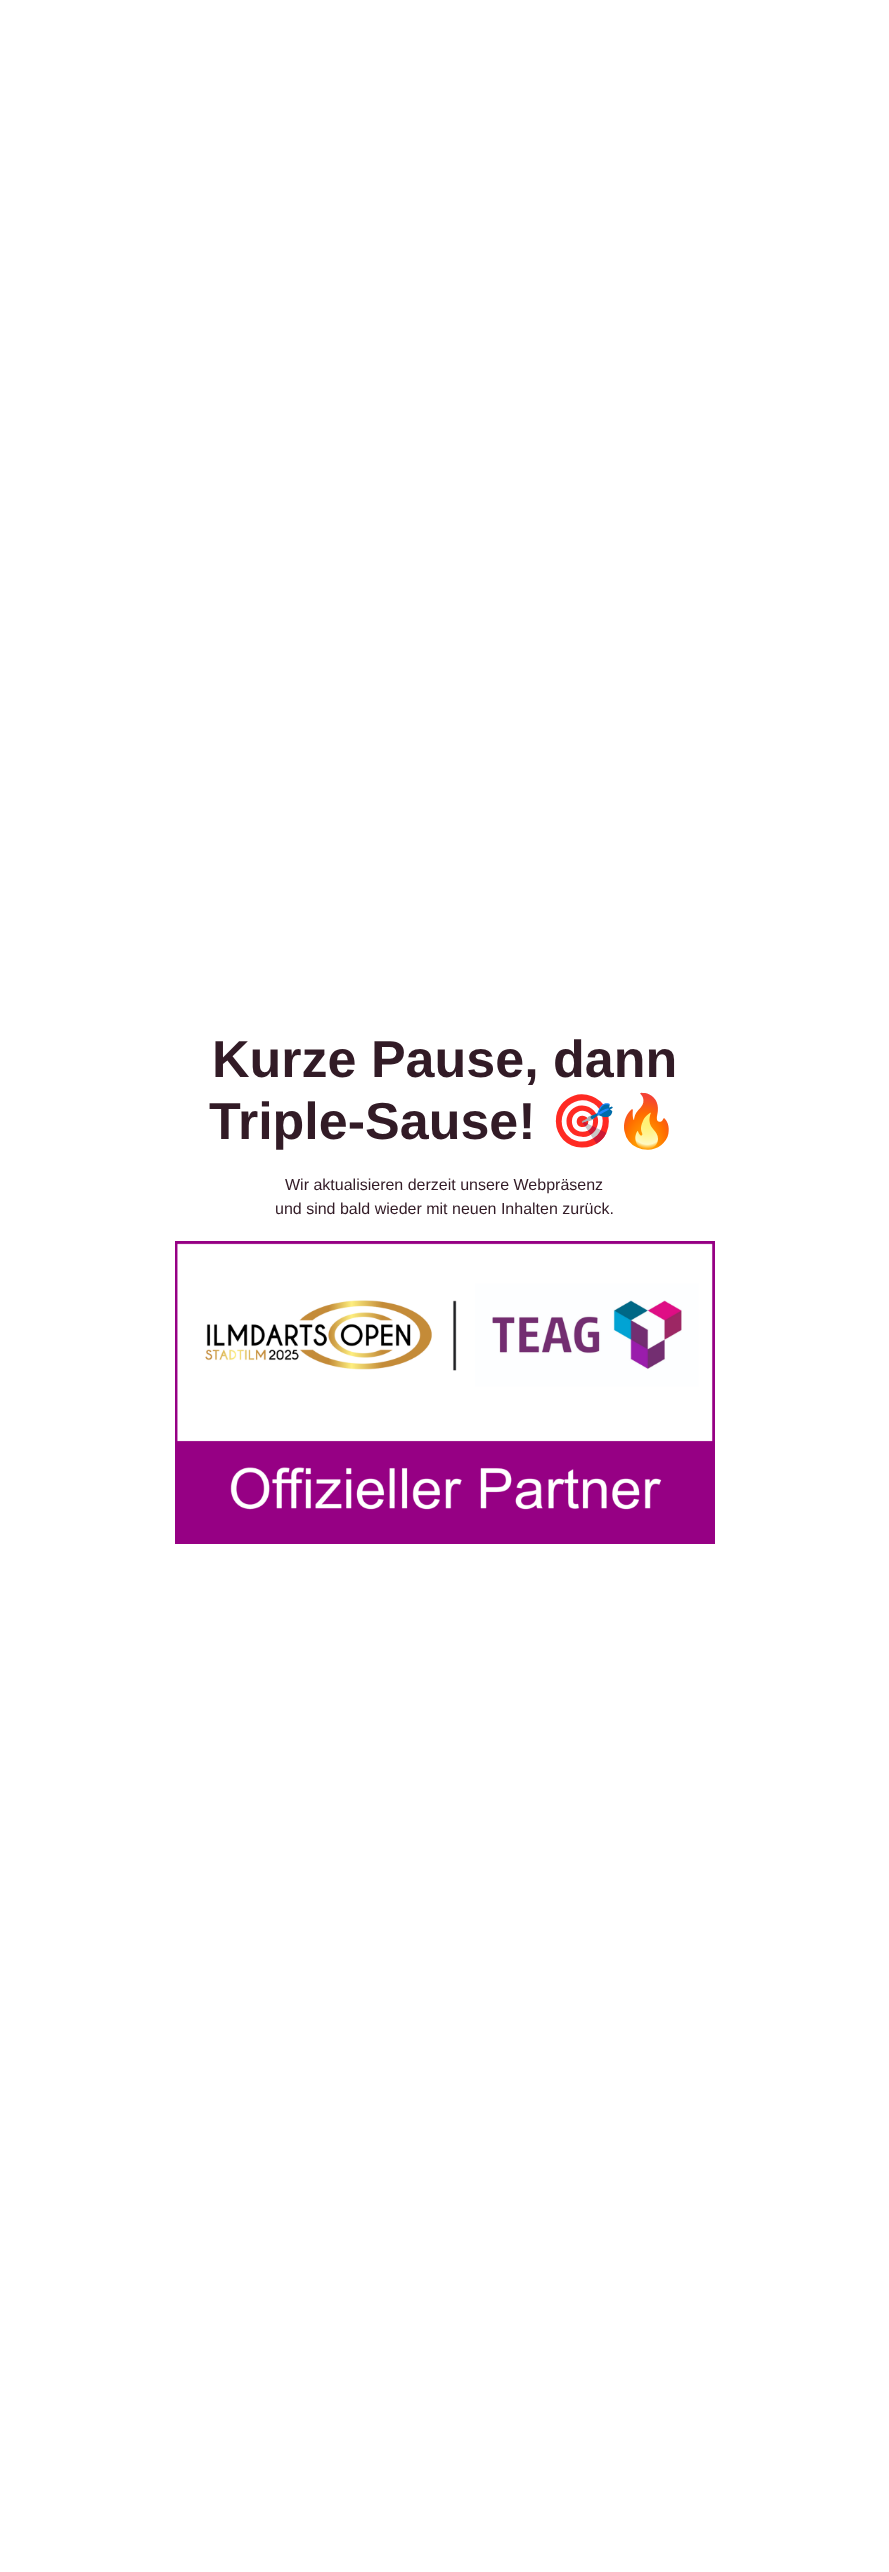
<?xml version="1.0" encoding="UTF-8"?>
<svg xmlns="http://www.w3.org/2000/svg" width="889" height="2572">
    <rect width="100%" height="100%" fill="#FFFFFF"/>
    <text x="212" y="1077" font-family="Liberation Sans" font-size="52" font-weight="700" fill="#321B26">Kurze Pause, dann</text>
    <text x="209" y="1139" font-family="Liberation Sans" font-size="52" font-weight="700" fill="#321B26">Triple-Sause!</text>
    <text x="550" y="1139" font-family="Noto Color Emoji" font-size="52" font-weight="700" fill="#321B26">🎯🔥</text>
    <text x="285" y="1190" font-family="Liberation Sans" font-size="16" fill="#321B26">Wir aktualisieren derzeit unsere Webpräsenz</text>
    <text x="275" y="1214" font-family="Liberation Sans" font-size="16" fill="#321B26">und sind bald wieder mit neuen Inhalten zurück.</text>
    <image x="175" y="1241" width="540" height="303" href="img_01.png"/>
</svg>
